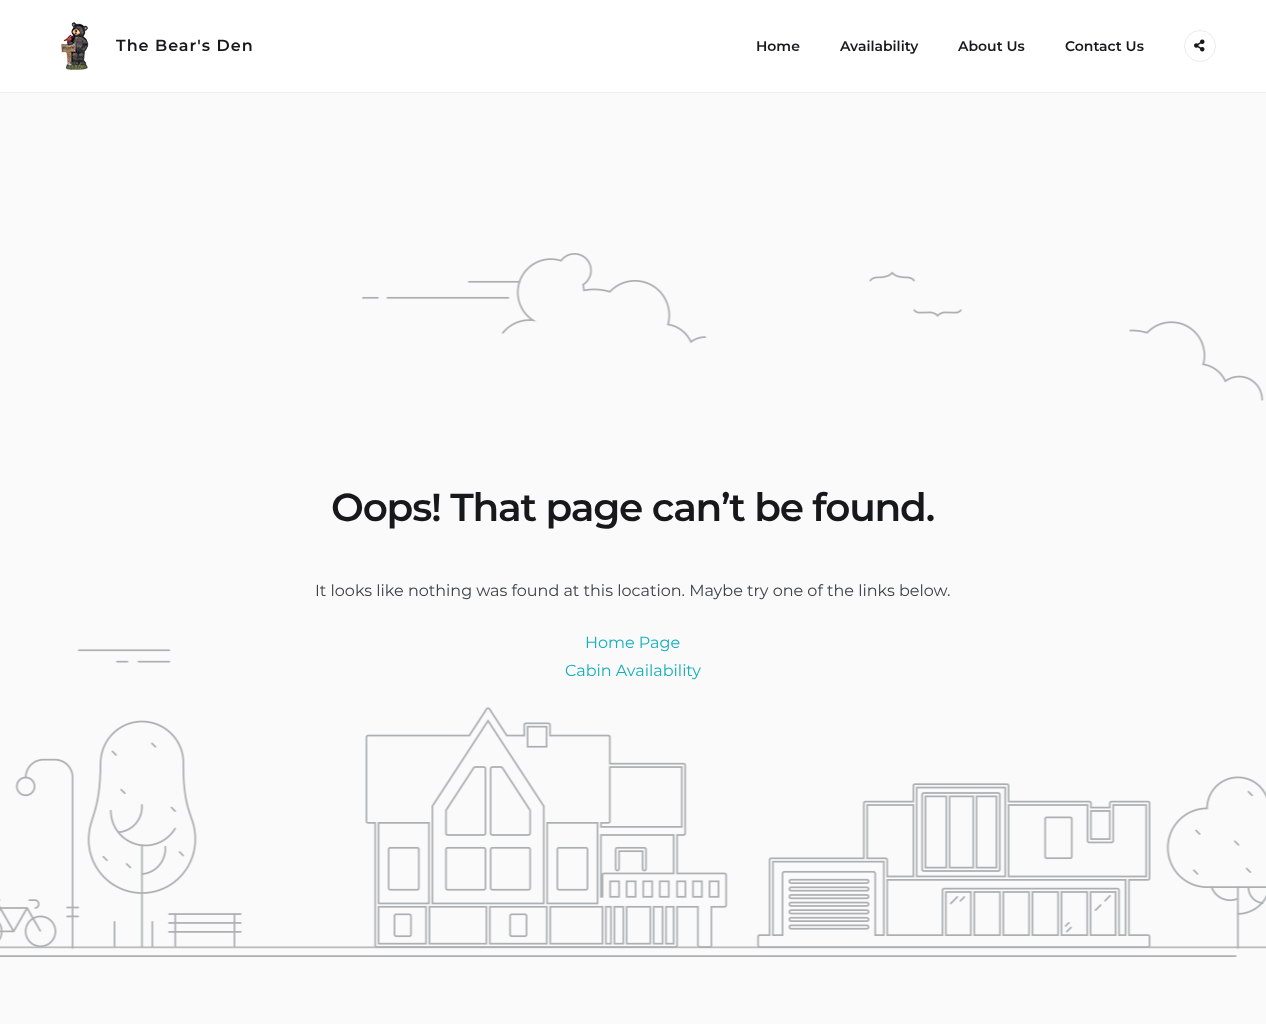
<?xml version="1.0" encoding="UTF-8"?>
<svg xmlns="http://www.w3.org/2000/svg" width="1266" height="1024">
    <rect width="100%" height="100%" fill="#FAFAFA"/>
    <rect x="0" y="92" width="1266" height="1" fill="#EDEDED"/>
    <rect x="0" y="0" width="1266" height="92" fill="#FFFFFF"/>
    <image x="61" y="22" width="28" height="48" href="img_01.png"/>
    <text x="116" y="51" font-family="Montserrat" font-size="16" font-weight="600" letter-spacing="1" fill="#17181A">The Bear's Den</text>
    <text x="756" y="51" font-family="Montserrat" font-size="14" font-weight="600" fill="#17181A">Home</text>
    <text x="840" y="51" font-family="Montserrat" font-size="14" font-weight="600" fill="#17181A">Availability</text>
    <text x="958" y="51" font-family="Montserrat" font-size="14" font-weight="600" fill="#17181A">About Us</text>
    <text x="1065" y="51" font-family="Montserrat" font-size="14" font-weight="600" fill="#17181A">Contact Us</text>
    <circle cx="1200" cy="46" r="15.5" fill="none" stroke="#EDEDED"/>
    <image x="1194" y="39" width="11" height="13" href="img_02.png"/>
    <image x="0" y="253" width="1266" height="704" href="img_03.png"/>
    <text x="331" y="521" font-family="Montserrat" font-size="39" font-weight="600" letter-spacing="-1.2" fill="#17181A">Oops! That page can’t be found.</text>
    <text x="315" y="596" font-family="Montserrat" font-size="16" fill="#3B4249">It looks like nothing was found at this location. Maybe try one of the links below.</text>
    <text x="585" y="648" font-family="Montserrat" font-size="16" fill="#13B0BB">Home Page</text>
    <text x="565" y="676" font-family="Montserrat" font-size="16" fill="#13B0BB">Cabin Availability</text>
</svg>
